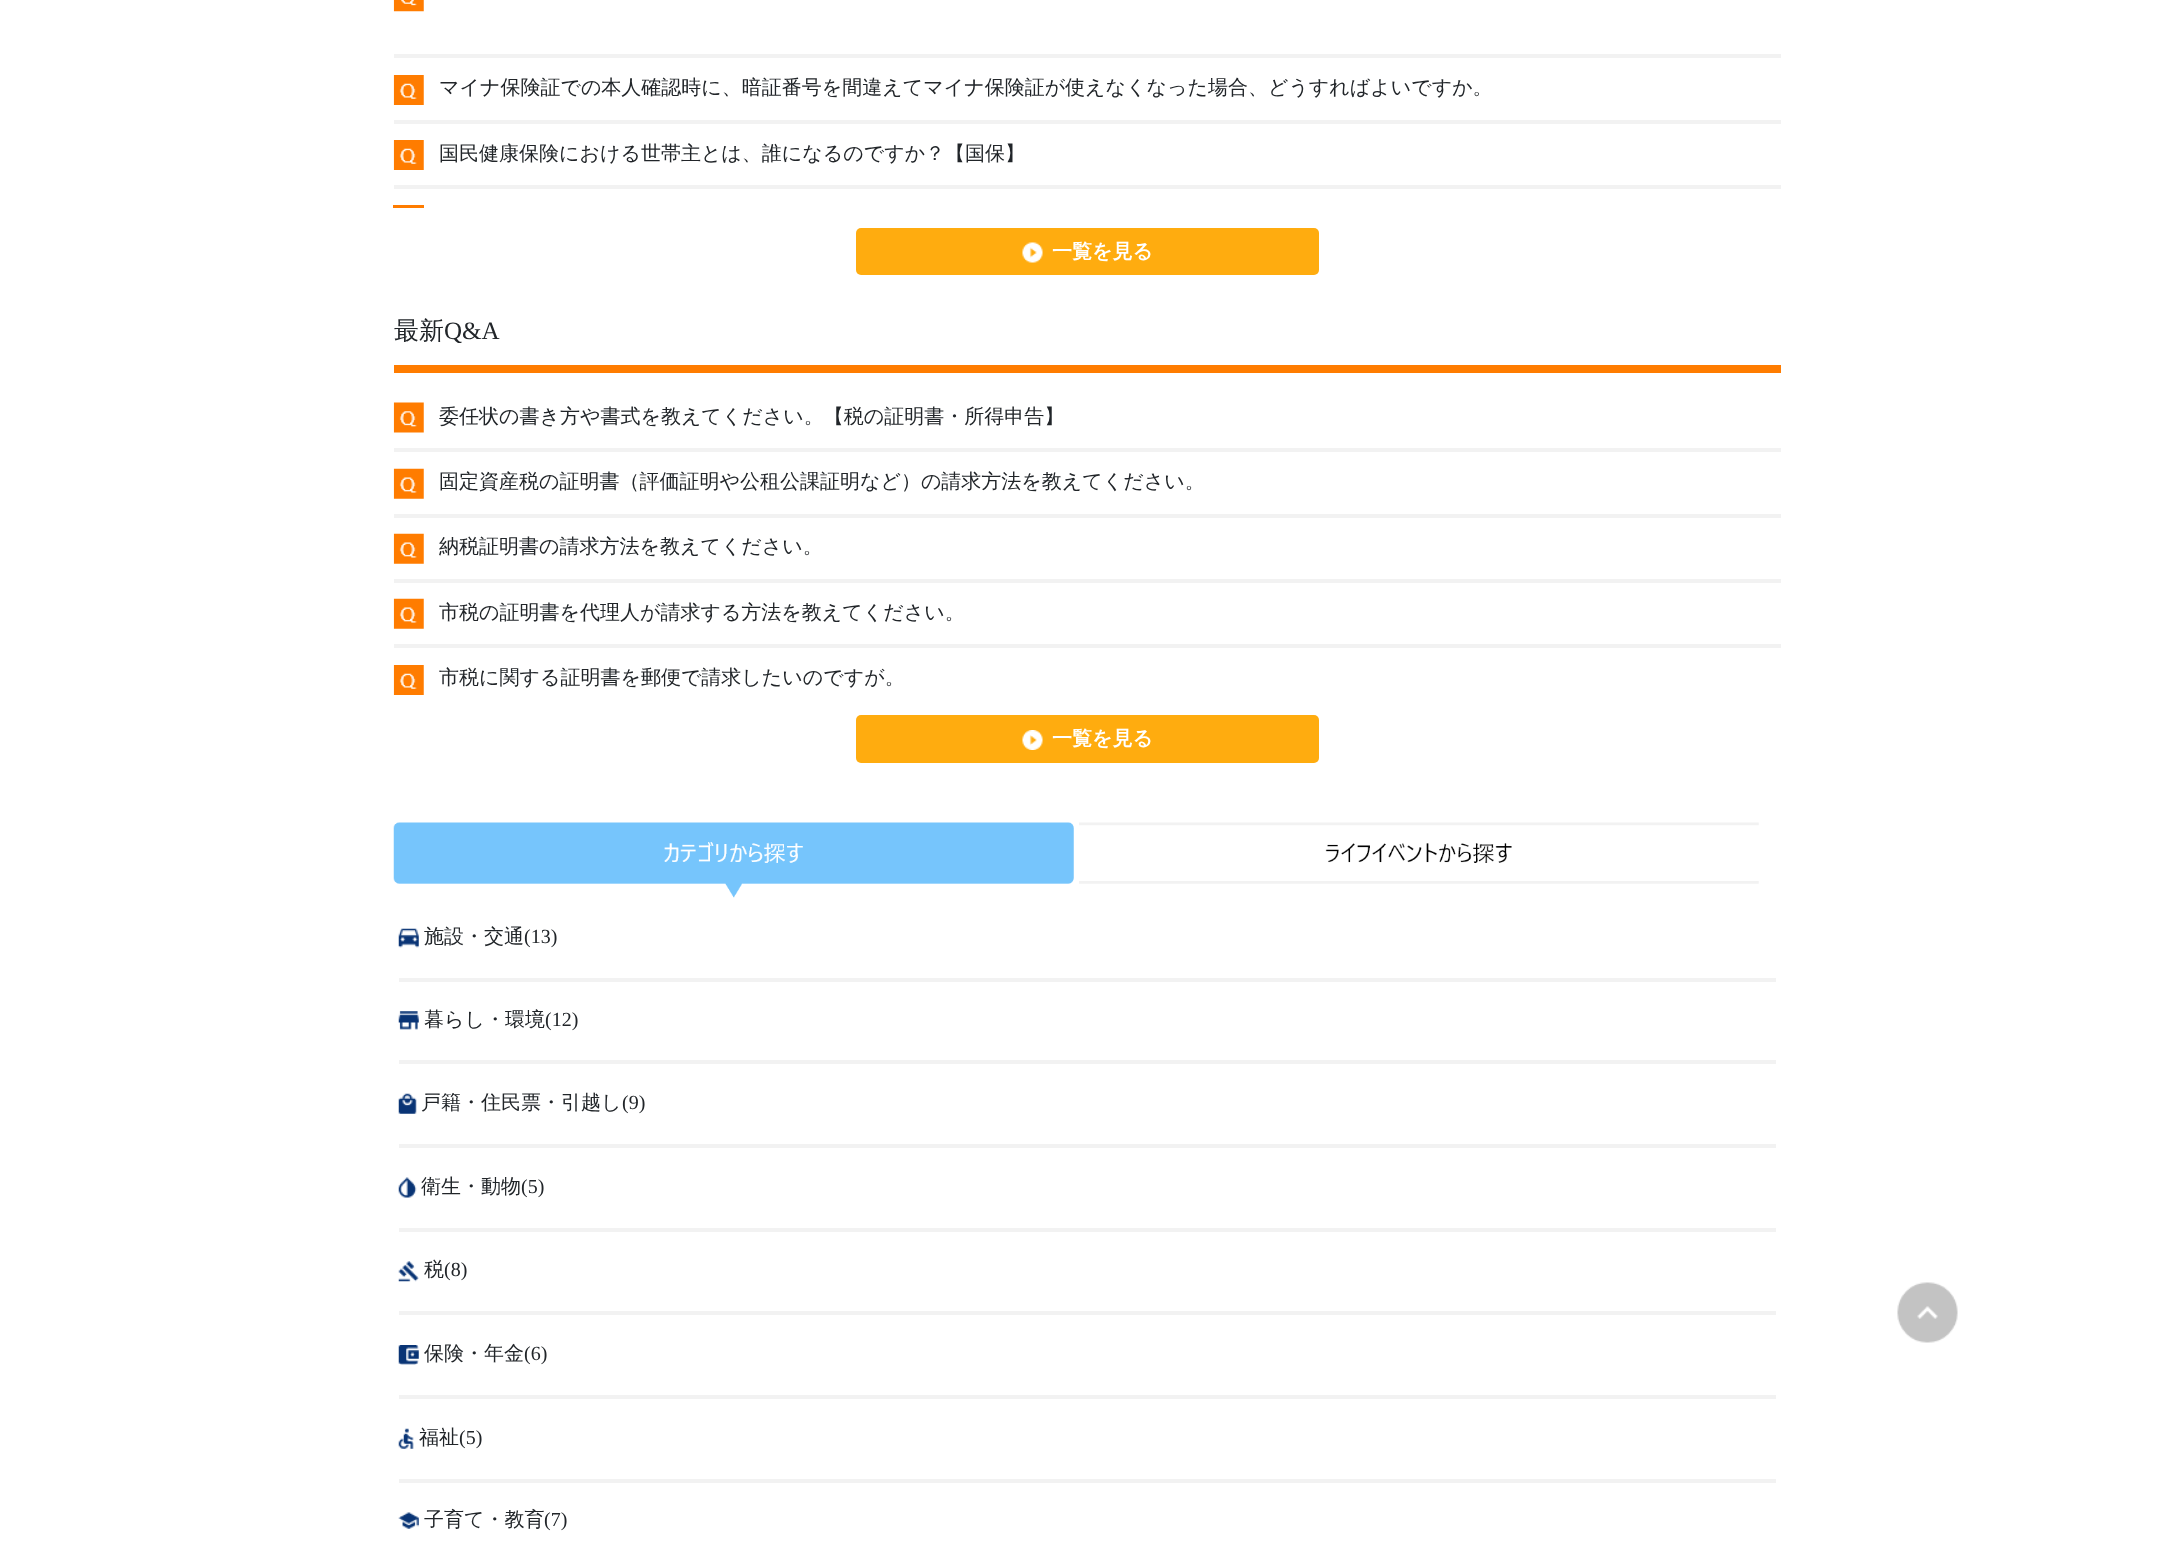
<?xml version="1.0" encoding="UTF-8"?>
<svg xmlns="http://www.w3.org/2000/svg" width="2175" height="1559">
    <rect width="100%" height="100%" fill="#FFFFFF"/>
    <rect x="394" y="54" width="1387" height="4" fill="#F2F2F2"/>
    <image x="393" y="0" width="31" height="12" href="img_01.png"/>
    <rect x="394" y="120" width="1387" height="4" fill="#F2F2F2"/>
    <image x="393" y="75" width="31" height="30" href="img_02.png"/>
    <text x="439" y="94" font-family="WenQuanYi Zen Hei" font-size="20" font-weight="500" fill="#212529">マイナ保険証での本人確認時に、暗証番号を間違えてマイナ保険証が使えなくなった場合、どうすればよいですか。</text>
    <rect x="394" y="185" width="1387" height="4" fill="#F2F2F2"/>
    <image x="393" y="140" width="31" height="30" href="img_02.png"/>
    <text x="439" y="160" font-family="WenQuanYi Zen Hei" font-size="20" font-weight="500" fill="#212529">国民健康保険における世帯主とは、誰になるのですか？【国保】</text>
    <rect x="393" y="205" width="31" height="3" fill="#FF7C00"/>
    <rect x="856" y="228" width="463" height="47" rx="5" fill="#FFAC0F"/>
    <image x="1022" y="242" width="21" height="21" href="img_03.png"/>
    <text x="1052" y="258" font-family="WenQuanYi Zen Hei" font-size="20" font-weight="700" fill="#FFFFFF">一覧を見る</text>
    <text x="394" y="339" font-family="WenQuanYi Zen Hei" font-size="25" font-weight="500" fill="#212529">最新</text>
    <text x="444" y="339" font-family="Liberation Serif" font-size="25" fill="#212529">Q&amp;A</text>
    <rect x="394" y="365" width="1387" height="8" fill="#FF7C00"/>
    <rect x="394" y="448" width="1387" height="4" fill="#F2F2F2"/>
    <image x="393" y="402" width="31" height="31" href="img_04.png"/>
    <text x="439" y="423" font-family="WenQuanYi Zen Hei" font-size="20" font-weight="500" fill="#212529">委任状の書き方や書式を教えてください。【税の証明書・所得申告】</text>
    <rect x="394" y="514" width="1387" height="4" fill="#F2F2F2"/>
    <image x="393" y="468" width="31" height="31" href="img_05.png"/>
    <text x="439" y="488" font-family="WenQuanYi Zen Hei" font-size="20" font-weight="500" fill="#212529">固定資産税の証明書（評価証明や公租公課証明など）の請求方法を教えてください。</text>
    <rect x="394" y="579" width="1387" height="4" fill="#F2F2F2"/>
    <image x="393" y="533" width="31" height="31" href="img_05.png"/>
    <text x="439" y="553" font-family="WenQuanYi Zen Hei" font-size="20" font-weight="500" fill="#212529">納税証明書の請求方法を教えてください。</text>
    <rect x="394" y="644" width="1387" height="4" fill="#F2F2F2"/>
    <image x="393" y="598" width="31" height="31" href="img_05.png"/>
    <text x="439" y="619" font-family="WenQuanYi Zen Hei" font-size="20" font-weight="500" fill="#212529">市税の証明書を代理人が請求する方法を教えてください。</text>
    <image x="393" y="665" width="31" height="30" href="img_02.png"/>
    <text x="439" y="684" font-family="WenQuanYi Zen Hei" font-size="20" font-weight="500" fill="#212529">市税に関する証明書を郵便で請求したいのですが。</text>
    <rect x="856" y="715" width="463" height="48" rx="5" fill="#FFAC0F"/>
    <image x="1022" y="730" width="21" height="20" href="img_06.png"/>
    <text x="1052" y="745" font-family="WenQuanYi Zen Hei" font-size="20" font-weight="700" fill="#FFFFFF">一覧を見る</text>
    <image x="393" y="822" width="681" height="76" href="img_07.png"/>
    <image x="1079" y="822" width="680" height="62" href="img_08.png"/>
    <rect x="399" y="978" width="1377" height="4" fill="#F2F2F2"/>
    <image x="398" y="928" width="21" height="20" href="img_09.png"/>
    <text x="424" y="943" font-family="WenQuanYi Zen Hei" font-size="20" font-weight="500" fill="#212529">施設・交通</text>
    <text x="524" y="943" font-family="Liberation Serif" font-size="20" fill="#212529">(13)</text>
    <rect x="399" y="1060" width="1377" height="4" fill="#F2F2F2"/>
    <image x="398" y="1011" width="21" height="19" href="img_10.png"/>
    <text x="424" y="1026" font-family="WenQuanYi Zen Hei" font-size="20" font-weight="500" fill="#212529">暮らし・環境</text>
    <text x="545" y="1026" font-family="Liberation Serif" font-size="20" fill="#212529">(12)</text>
    <rect x="399" y="1144" width="1377" height="4" fill="#F2F2F2"/>
    <image x="398" y="1093" width="19" height="21" href="img_11.png"/>
    <text x="421" y="1109" font-family="WenQuanYi Zen Hei" font-size="20" font-weight="500" fill="#212529">戸籍・住民票・引越し</text>
    <text x="622" y="1109" font-family="Liberation Serif" font-size="20" fill="#212529">(9)</text>
    <rect x="399" y="1228" width="1377" height="4" fill="#F2F2F2"/>
    <image x="398" y="1177" width="19" height="21" href="img_12.png"/>
    <text x="421" y="1193" font-family="WenQuanYi Zen Hei" font-size="20" font-weight="500" fill="#212529">衛生・動物</text>
    <text x="521" y="1193" font-family="Liberation Serif" font-size="20" fill="#212529">(5)</text>
    <rect x="399" y="1311" width="1377" height="4" fill="#F2F2F2"/>
    <image x="398" y="1261" width="21" height="21" href="img_13.png"/>
    <text x="424" y="1276" font-family="WenQuanYi Zen Hei" font-size="20" font-weight="500" fill="#212529">税</text>
    <text x="444" y="1276" font-family="Liberation Serif" font-size="20" fill="#212529">(8)</text>
    <rect x="399" y="1395" width="1377" height="4" fill="#F2F2F2"/>
    <image x="398" y="1345" width="21" height="20" href="img_14.png"/>
    <text x="424" y="1360" font-family="WenQuanYi Zen Hei" font-size="20" font-weight="500" fill="#212529">保険・年金</text>
    <text x="524" y="1360" font-family="Liberation Serif" font-size="20" fill="#212529">(6)</text>
    <rect x="399" y="1479" width="1377" height="4" fill="#F2F2F2"/>
    <image x="398" y="1428" width="16" height="21" href="img_15.png"/>
    <text x="419" y="1444" font-family="WenQuanYi Zen Hei" font-size="20" font-weight="500" fill="#212529">福祉</text>
    <text x="459" y="1444" font-family="Liberation Serif" font-size="20" fill="#212529">(5)</text>
    <image x="398" y="1512" width="21" height="17" href="img_16.png"/>
    <text x="424" y="1526" font-family="WenQuanYi Zen Hei" font-size="20" font-weight="500" fill="#212529">子育て・教育</text>
    <text x="544" y="1526" font-family="Liberation Serif" font-size="20" fill="#212529">(7)</text>
    <image x="1897" y="1282" width="61" height="61" href="img_17.png"/>
</svg>
